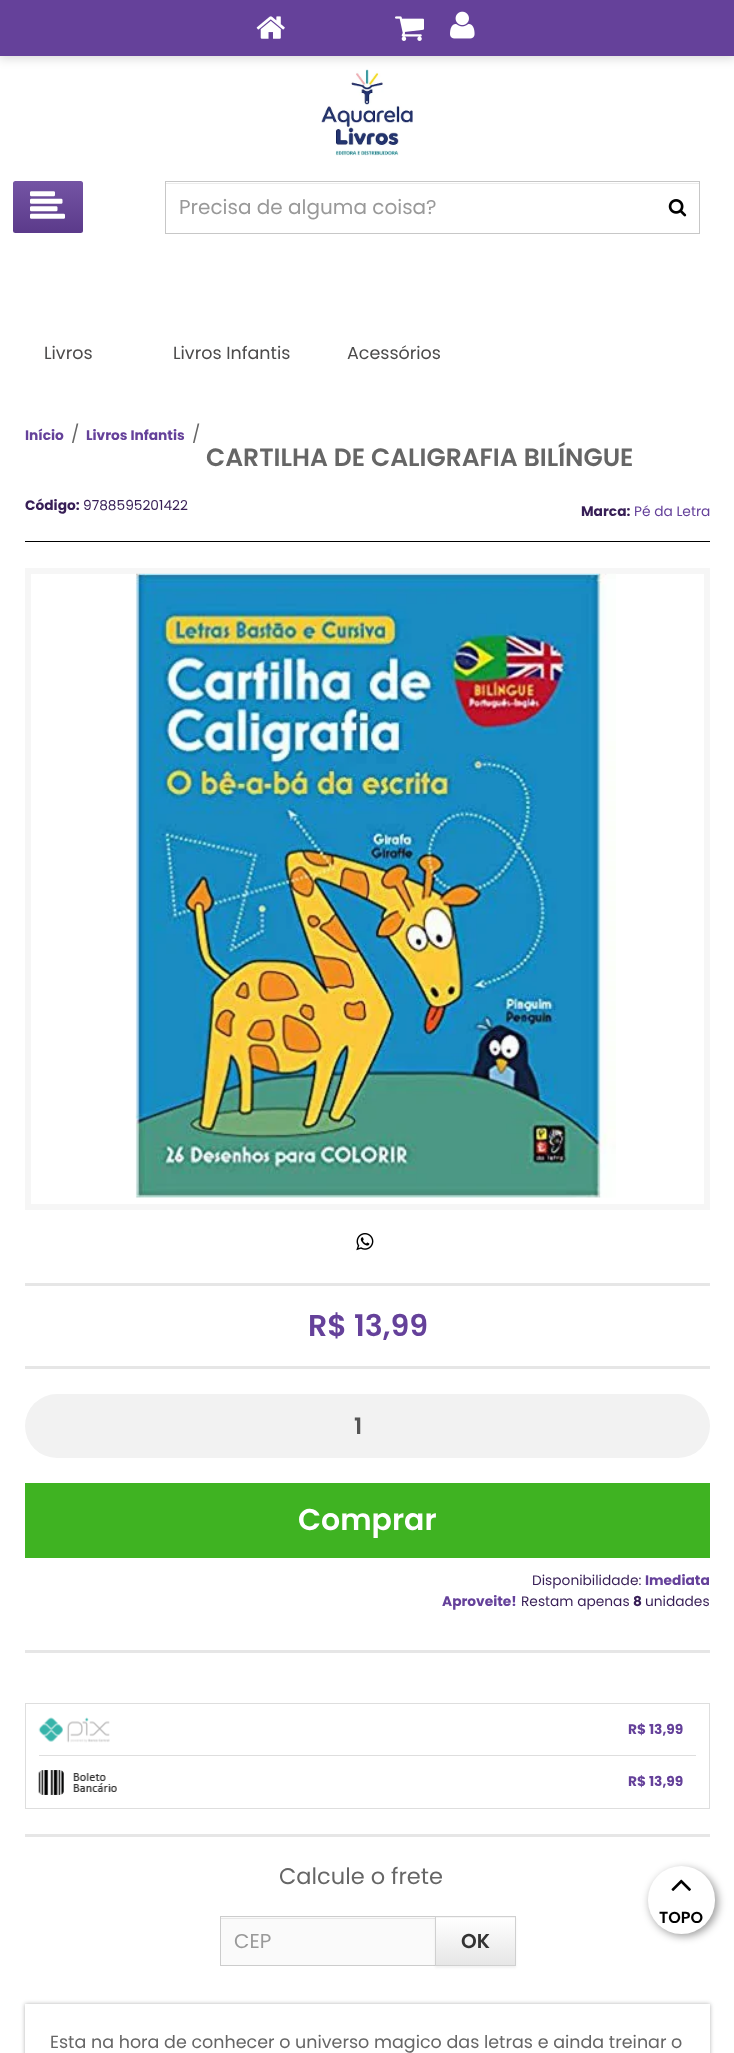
<?xml version="1.0" encoding="UTF-8"?>
<svg xmlns="http://www.w3.org/2000/svg" width="734" height="2053">
    <defs>
        <filter id="blur1" x="-50%" y="-200%" width="200%" height="500%"><feGaussianBlur stdDeviation="5.5"/></filter>
        <linearGradient id="g1" gradientUnits="userSpaceOnUse" x1="48" y1="181" x2="48" y2="233"><stop offset="0" stop-color="#FFFFFF" stop-opacity="0.1"/><stop offset="1" stop-color="#000000" stop-opacity="0.1"/></linearGradient>
        <filter id="blur2" x="-50%" y="-200%" width="200%" height="500%"><feGaussianBlur stdDeviation="1"/></filter>
        <linearGradient id="g2" gradientUnits="userSpaceOnUse" x1="476" y1="1918" x2="476" y2="1965"><stop offset="0" stop-color="#FFFFFF"/><stop offset="1" stop-color="#E6E6E6"/></linearGradient>
        <clipPath id="clip1"><path d="M 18 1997 H 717 V 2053 H 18 Z M 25 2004 H 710 V 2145 H 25 Z" clip-rule="evenodd"/></clipPath>
        <filter id="blur3" x="-50%" y="-200%" width="200%" height="500%"><feGaussianBlur stdDeviation="2"/></filter>
        <filter id="blur4" x="-50%" y="-200%" width="200%" height="500%"><feGaussianBlur stdDeviation="4"/></filter>
    </defs>
    <rect width="100%" height="100%" fill="#FFFFFF"/>
    <image x="321" y="69" width="92" height="87" href="img_04.png"/>
    <rect x="-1" y="-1" width="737" height="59" fill="#000000" fill-opacity="0.16" filter="url(#blur1)"/>
    <rect x="0" y="0" width="734" height="56" fill="#65419A"/>
    <image x="256" y="16" width="29" height="23" href="img_01.png"/>
    <image x="395" y="16" width="29" height="25" href="img_02.png"/>
    <image x="450" y="11" width="25" height="28" href="img_03.png"/>
    <rect x="13" y="181" width="70" height="52" rx="2.5" fill="#65419A"/>
    <rect x="13" y="181" width="70" height="52" rx="2.5" fill="url(#g1)"/>
    <image x="30" y="191" width="35" height="28" href="img_05.png"/>
    <rect x="166" y="183" width="533" height="1" fill="#ECECEC"/>
    <rect x="165.5" y="181.5" width="534" height="52" fill="none" stroke="#C7C7C7"/>
    <text x="179" y="214" font-family="Poppins" font-size="20" fill="#999999">Precisa de alguma coisa?</text>
    <image x="668" y="199" width="19" height="18" href="img_06.png"/>
    <text x="44" y="359" font-family="Poppins" font-size="17.5" fill="#4C4B4B">Livros</text>
    <text x="173" y="359" font-family="Poppins" font-size="17.5" fill="#4C4B4B">Livros Infantis</text>
    <text x="347" y="359" font-family="Poppins" font-size="17.5" fill="#4C4B4B">Acessórios</text>
    <text x="25" y="440" font-family="Poppins" font-size="13.75" font-weight="700" fill="#65419A">Início</text>
    <text x="71" y="440" font-family="Poppins" font-size="17.5" fill="#666666">/</text>
    <text x="86" y="440" font-family="Poppins" font-size="13.75" font-weight="700" fill="#65419A">Livros Infantis</text>
    <text x="192" y="440" font-family="Poppins" font-size="17.5" fill="#666666">/</text>
    <text x="206" y="466" font-family="Poppins" font-size="25" font-weight="600" fill="#666666">CARTILHA DE CALIGRAFIA BILÍNGUE</text>
    <rect x="25" y="541" width="685" height="1" fill="#000000"/>
    <text x="25" y="510" font-family="Poppins" font-size="13.75" font-weight="700" fill="#371E56">Código:</text>
    <text x="83" y="510" font-family="Poppins" font-size="13.75" fill="#371E56">9788595201422</text>
    <text x="581" y="516" font-family="Poppins" font-size="13.75" font-weight="700" fill="#371E56">Marca:</text>
    <text x="634" y="516" font-family="Poppins" font-size="13.75" fill="#65419A">Pé da Letra</text>
    <rect x="28" y="571" width="679" height="636" fill="none" stroke="#F6F6F6" stroke-width="6"/>
    <image x="135" y="573" width="481" height="625" href="img_07.png"/>
    <rect x="25" y="1283" width="685" height="3" fill="#E6E6E6"/>
    <image x="356" y="1233" width="18" height="18" href="img_08.png"/>
    <rect x="25" y="1650" width="685" height="3" fill="#E6E6E6"/>
    <rect x="25" y="1366" width="685" height="3" fill="#E6E6E6"/>
    <text x="308" y="1336" font-family="Poppins" font-size="30" font-weight="600" fill="#65419A">R$ 13,99</text>
    <rect x="25" y="1394" width="685" height="64" rx="32" fill="#F2F2F2"/>
    <text x="354" y="1434" font-family="Poppins" font-size="22.5" font-weight="600" fill="#555555">1</text>
    <rect x="25" y="1483" width="685" height="75" fill="#3FB322"/>
    <text x="298" y="1530" font-family="Poppins" font-size="30" font-weight="600" fill="#FFFFFF">Comprar</text>
    <text x="532" y="1585" font-family="Poppins" font-size="13.75" fill="#371E56">Disponibilidade:</text>
    <text x="645" y="1585" font-family="Poppins" font-size="13.75" font-weight="700" fill="#65419A">Imediata</text>
    <text x="442" y="1606" font-family="Poppins" font-size="13.75" font-weight="700" fill="#65419A">Aproveite!</text>
    <text x="521" y="1606" font-family="Poppins" font-size="13.75" fill="#371E56">Restam apenas</text>
    <text x="633" y="1606" font-family="Poppins" font-size="13.75" font-weight="700" fill="#371E56">8</text>
    <text x="645" y="1606" font-family="Poppins" font-size="13.75" fill="#371E56">unidades</text>
    <rect x="25" y="1834" width="685" height="3" fill="#E6E6E6"/>
    <rect x="25.5" y="1703.5" width="684" height="105" fill="none" stroke="#DEDEDE"/>
    <image x="38" y="1717" width="72" height="26" href="img_09.png"/>
    <text x="628" y="1734" font-family="Poppins" font-size="13.75" font-weight="700" fill="#65419A">R$ 13,99</text>
    <rect x="39" y="1755" width="657" height="1" fill="#DEDEDE"/>
    <image x="38" y="1770" width="79" height="25" href="img_10.png"/>
    <text x="628" y="1786" font-family="Poppins" font-size="13.75" font-weight="700" fill="#65419A">R$ 13,99</text>
    <text x="279" y="1884" font-family="Poppins" font-size="22.5" fill="#666666">Calcule o frete</text>
    <rect x="221" y="1917" width="214" height="48" fill="#FAFAFA"/>
    <rect x="221" y="1918" width="214" height="1" fill="#E7E7E7"/>
    <rect x="220.5" y="1916.5" width="239" height="49" fill="none" stroke="#CCCCCC"/>
    <text x="234" y="1948" font-family="Poppins" font-size="20" fill="#999999">CEP</text>
    <rect x="435" y="1918" width="81" height="50" fill="#000000" fill-opacity="0.05" filter="url(#blur2)"/>
    <rect x="436" y="1917" width="79" height="1" fill="#F5F5F5"/>
    <rect x="436" y="1918" width="79" height="47" fill="url(#g2)"/>
    <rect x="435.5" y="1916.5" width="80" height="49" fill="none" stroke="#D0D0D0"/>
    <text x="461" y="1948" font-family="Poppins" font-size="20" font-weight="600" fill="#333333">OK</text>
    <g clip-path="url(#clip1)">
        <rect x="25" y="2004" width="685" height="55" fill="#000000" fill-opacity="0.3" filter="url(#blur3)"/>
    </g>
    <text x="50" y="2048" font-family="Poppins" font-size="17.5" fill="#666666">Esta na hora de conhecer o universo magico das letras e ainda treinar o</text>
    <rect x="650" y="1869" width="68" height="67" rx="33.5" fill="#000000" fill-opacity="0.4" filter="url(#blur4)"/>
    <rect x="648" y="1866" width="67" height="68" rx="33.5" fill="#FFFFFF"/>
    <image x="671" y="1879" width="20" height="12" href="img_11.png"/>
    <text x="659" y="1923" font-family="Poppins" font-size="16" font-weight="600" fill="#000000">TOPO</text>
</svg>
